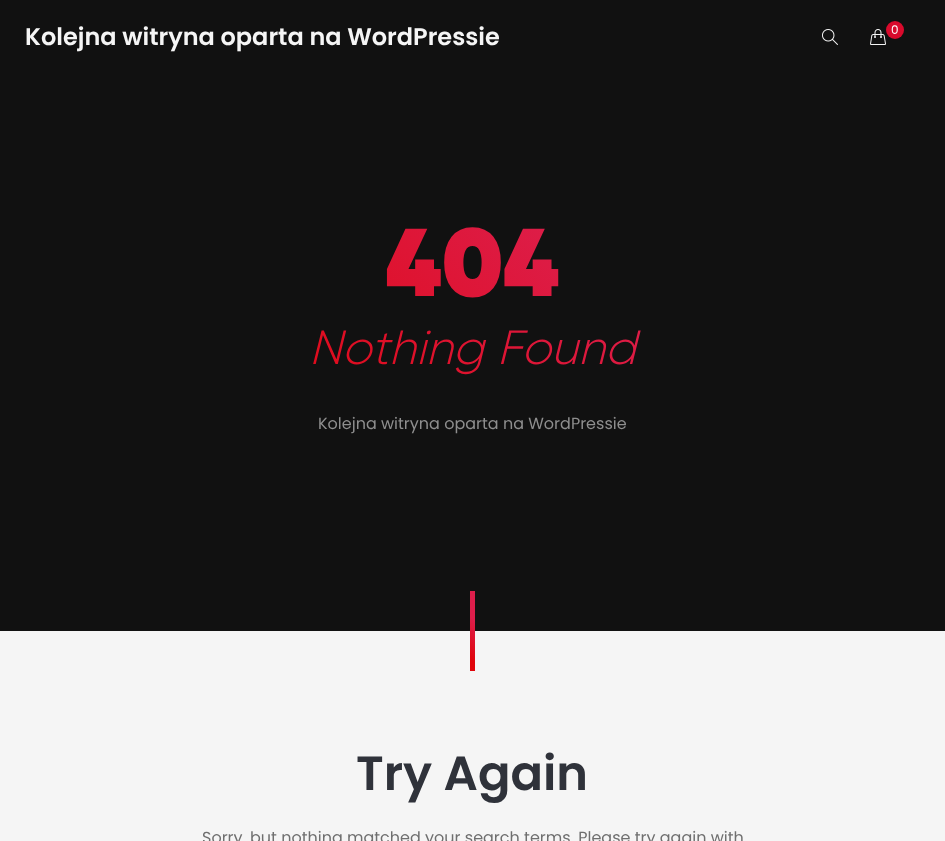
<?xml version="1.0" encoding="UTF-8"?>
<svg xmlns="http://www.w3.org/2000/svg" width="945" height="841">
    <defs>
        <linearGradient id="g1" gradientUnits="userSpaceOnUse" x1="198" y1="566" x2="747" y2="17"><stop offset="0.15" stop-color="#E0040B"/><stop offset="0.65" stop-color="#DD1E4B"/></linearGradient>
        <linearGradient id="g2" gradientUnits="userSpaceOnUse" x1="451" y1="652" x2="494" y2="610"><stop offset="0.15" stop-color="#E0040B"/><stop offset="0.65" stop-color="#DD1E4B"/></linearGradient>
    </defs>
    <rect width="100%" height="100%" fill="#F5F5F5"/>
    <rect x="0" y="0" width="945" height="631" fill="#111111"/>
    <text x="25" y="45" font-family="Poppins" font-size="24" font-weight="600" fill="#F5F5F5">Kolejna witryna oparta na WordPressie</text>
    <image x="822" y="29" width="16" height="16" href="img_01.png"/>
    <image x="870" y="29" width="16" height="16" href="img_02.png"/>
    <circle cx="895" cy="30" r="9" fill="#D90A2C"/>
    <text x="891" y="34" font-family="Poppins" font-size="12" fill="#FFFFFF">0</text>
    <text x="386" y="296" font-family="Gilroy" font-size="96" font-weight="900" fill="url(#g1)">404</text>
    <text x="309" y="364" font-family="Gilroy" font-size="48" font-weight="300" font-style="italic" fill="url(#g1)">Nothing Found</text>
    <text x="318" y="429" font-family="Poppins" font-size="16" fill="#8E8E8E">Kolejna witryna oparta na WordPressie</text>
    <rect x="470" y="591" width="5" height="80" fill="url(#g2)"/>
    <text x="356" y="790" font-family="Poppins" font-size="48" font-weight="600" fill="#2F323A">Try Again</text>
    <text x="202" y="843" font-family="Poppins" font-size="16" fill="#6F6F6F">Sorry, but nothing matched your search terms. Please try again with</text>
</svg>
